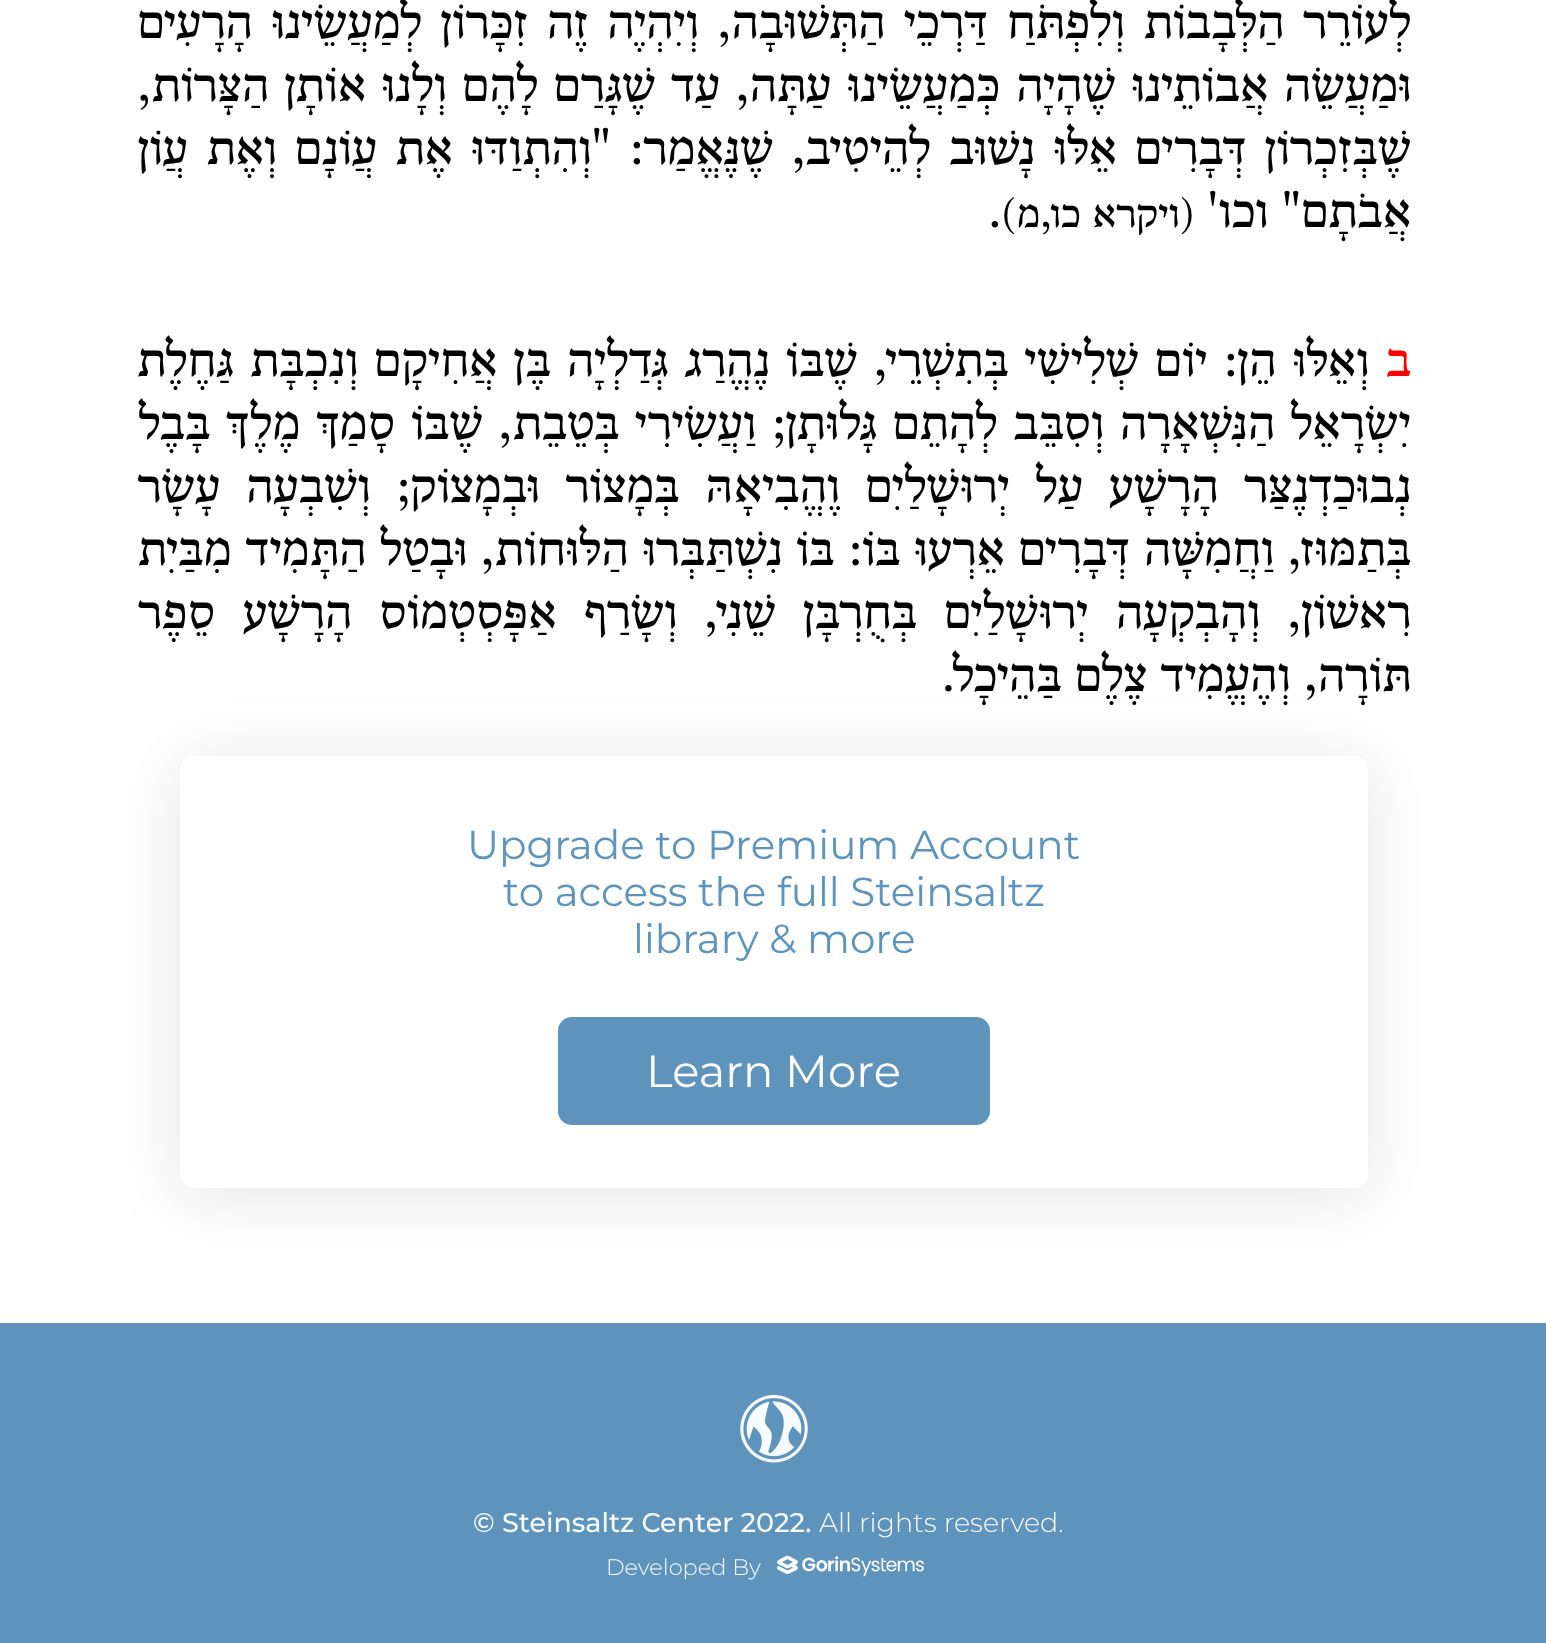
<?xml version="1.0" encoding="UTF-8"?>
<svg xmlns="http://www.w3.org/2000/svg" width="1546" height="1643">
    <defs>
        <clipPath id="clip1"><path d="M 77 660 H 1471 V 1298 H 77 Z M 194 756 H 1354 C 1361.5 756 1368 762.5 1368 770 V 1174 C 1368 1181.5 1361.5 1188 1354 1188 H 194 C 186.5 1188 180 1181.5 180 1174 V 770 C 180 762.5 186.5 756 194 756 Z" clip-rule="evenodd"/></clipPath>
        <filter id="blur1" x="-50%" y="-200%" width="200%" height="500%"><feGaussianBlur stdDeviation="34"/></filter>
    </defs>
    <rect width="100%" height="100%" fill="#FFFFFF"/>
    <text font-family="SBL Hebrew" font-size="49.5" direction="rtl" fill="#000000">
        <tspan x="1411" y="38" word-spacing="5.25">לְעוֹרֵר הַלְּבָבוֹת וְלִפְתֹּחַ דַּרְכֵי הַתְּשׁוּבָה, וְיִהְיֶה זֶה זִכָּרוֹן לְמַעֲשֵׂינוּ הָרָעִים</tspan>
        <tspan x="1411" y="101" word-spacing="2">וּמַעֲשֵׂה אֲבוֹתֵינוּ שֶׁהָיָה כְּמַעֲשֵׂינוּ עַתָּה, עַד שֶׁגָּרַם לָהֶם וְלָנוּ אוֹתָן הַצָּרוֹת,</tspan>
        <tspan x="1411" y="164" word-spacing="4.75">שֶׁבְּזִכְרוֹן דְּבָרִים אֵלּוּ נָשׁוּב לְהֵיטִיב, שֶׁנֶּאֱמַר: "וְהִתְוַדּוּ אֶת עֲוֹנָם וְאֶת עֲוֹן</tspan>
        <tspan x="1411" y="227">אֲבֹתָם" וכו'</tspan>
    </text>
    <text x="1194" y="227" font-family="SBL Hebrew" font-size="41.25" direction="rtl" fill="#000000">(ויקרא כו,מ)</text>
    <text x="988" y="227" font-family="SBL Hebrew" font-size="49.5" fill="#000000">.</text>
    <text x="1411" y="376" font-family="SBL Hebrew" font-size="49.5" direction="rtl" fill="#FF0000">ב</text>
    <text x="1369" y="376" word-spacing="2.6" font-family="SBL Hebrew" font-size="49.5" direction="rtl" fill="#000000">וְאֵלּוּ הֵן: יוֹם שְׁלִישִׁי בְּתִשְׁרֵי, שֶׁבּוֹ נֶהֱרַג גְּדַלְיָה בֶּן אֲחִיקָם וְנִכְבָּת גַּחֶלֶת</text>
    <text font-family="SBL Hebrew" font-size="49.5" direction="rtl" fill="#000000">
        <tspan x="1411" y="439" word-spacing="2.25">יִשְׂרָאֵל הַנִּשְׁאָרָה וְסִבֵּב לְהָתֵם גָּלוּתָן; וַעֲשִׂירִי בְּטֵבֵת, שֶׁבּוֹ סָמַךְ מֶלֶךְ בָּבֶל</tspan>
        <tspan x="1411" y="502" word-spacing="12.25">נְבוּכַדְנֶצַּר הָרָשָׁע עַל יְרוּשָׁלַיִם וֶהֱבִיאָהּ בְּמָצוֹר וּבְמָצוֹק; וְשִׁבְעָה עָשָׂר</tspan>
        <tspan x="1411" y="565" word-spacing="0.25">בְּתַמּוּז, וַחֲמִשָּׁה דְּבָרִים אֵרְעוּ בּוֹ: בּוֹ נִשְׁתַּבְּרוּ הַלּוּחוֹת, וּבָטַל הַתָּמִיד מִבַּיִת</tspan>
        <tspan x="1411" y="628" word-spacing="13.75">רִאשׁוֹן, וְהָבְקְעָה יְרוּשָׁלַיִם בְּחֻרְבָּן שֵׁנִי, וְשָׂרַף אַפָּסְטְמוֹס הָרָשָׁע סֵפֶר</tspan>
    </text>
    <g clip-path="url(#clip1)">
        <rect x="180" y="763" width="1188" height="432" rx="14" fill="#000000" fill-opacity="0.1" filter="url(#blur1)"/>
    </g>
    <text x="1411" y="691" font-family="SBL Hebrew" font-size="49.5" direction="rtl" fill="#000000">תּוֹרָה, וְהֶעֱמִיד צֶלֶם בַּהֵיכָל.</text>
    <text x="467" y="859" font-family="Montserrat" font-size="40.5" fill="#5E94BC">Upgrade to Premium Account</text>
    <text x="503" y="906" font-family="Montserrat" font-size="40.5" fill="#5E94BC">to access the full Steinsaltz</text>
    <text x="633" y="953" font-family="Montserrat" font-size="40.5" fill="#5E94BC">library &amp; more</text>
    <rect x="558" y="1017" width="432" height="108" rx="14" fill="#5E94BC"/>
    <text x="646" y="1087" font-family="Montserrat" font-size="45" fill="#FFFFFF">Learn More</text>
    <rect x="0" y="1323" width="1546" height="320" fill="#5E94BC"/>
    <image x="740" y="1395" width="68" height="68" href="img_01.png"/>
    <text x="819" y="1532" font-family="Montserrat" font-size="27" font-weight="300" fill="#F7FBFE">All rights reserved.</text>
    <text x="473" y="1532" font-family="Montserrat" font-size="27" font-weight="500" fill="#F7FBFE">© Steinsaltz Center 2022.</text>
    <image x="777" y="1555" width="147" height="22" href="img_02.png"/>
    <text x="606" y="1575" font-family="Montserrat" font-size="22.5" font-weight="300" fill="#F7FBFE">Developed By</text>
</svg>
